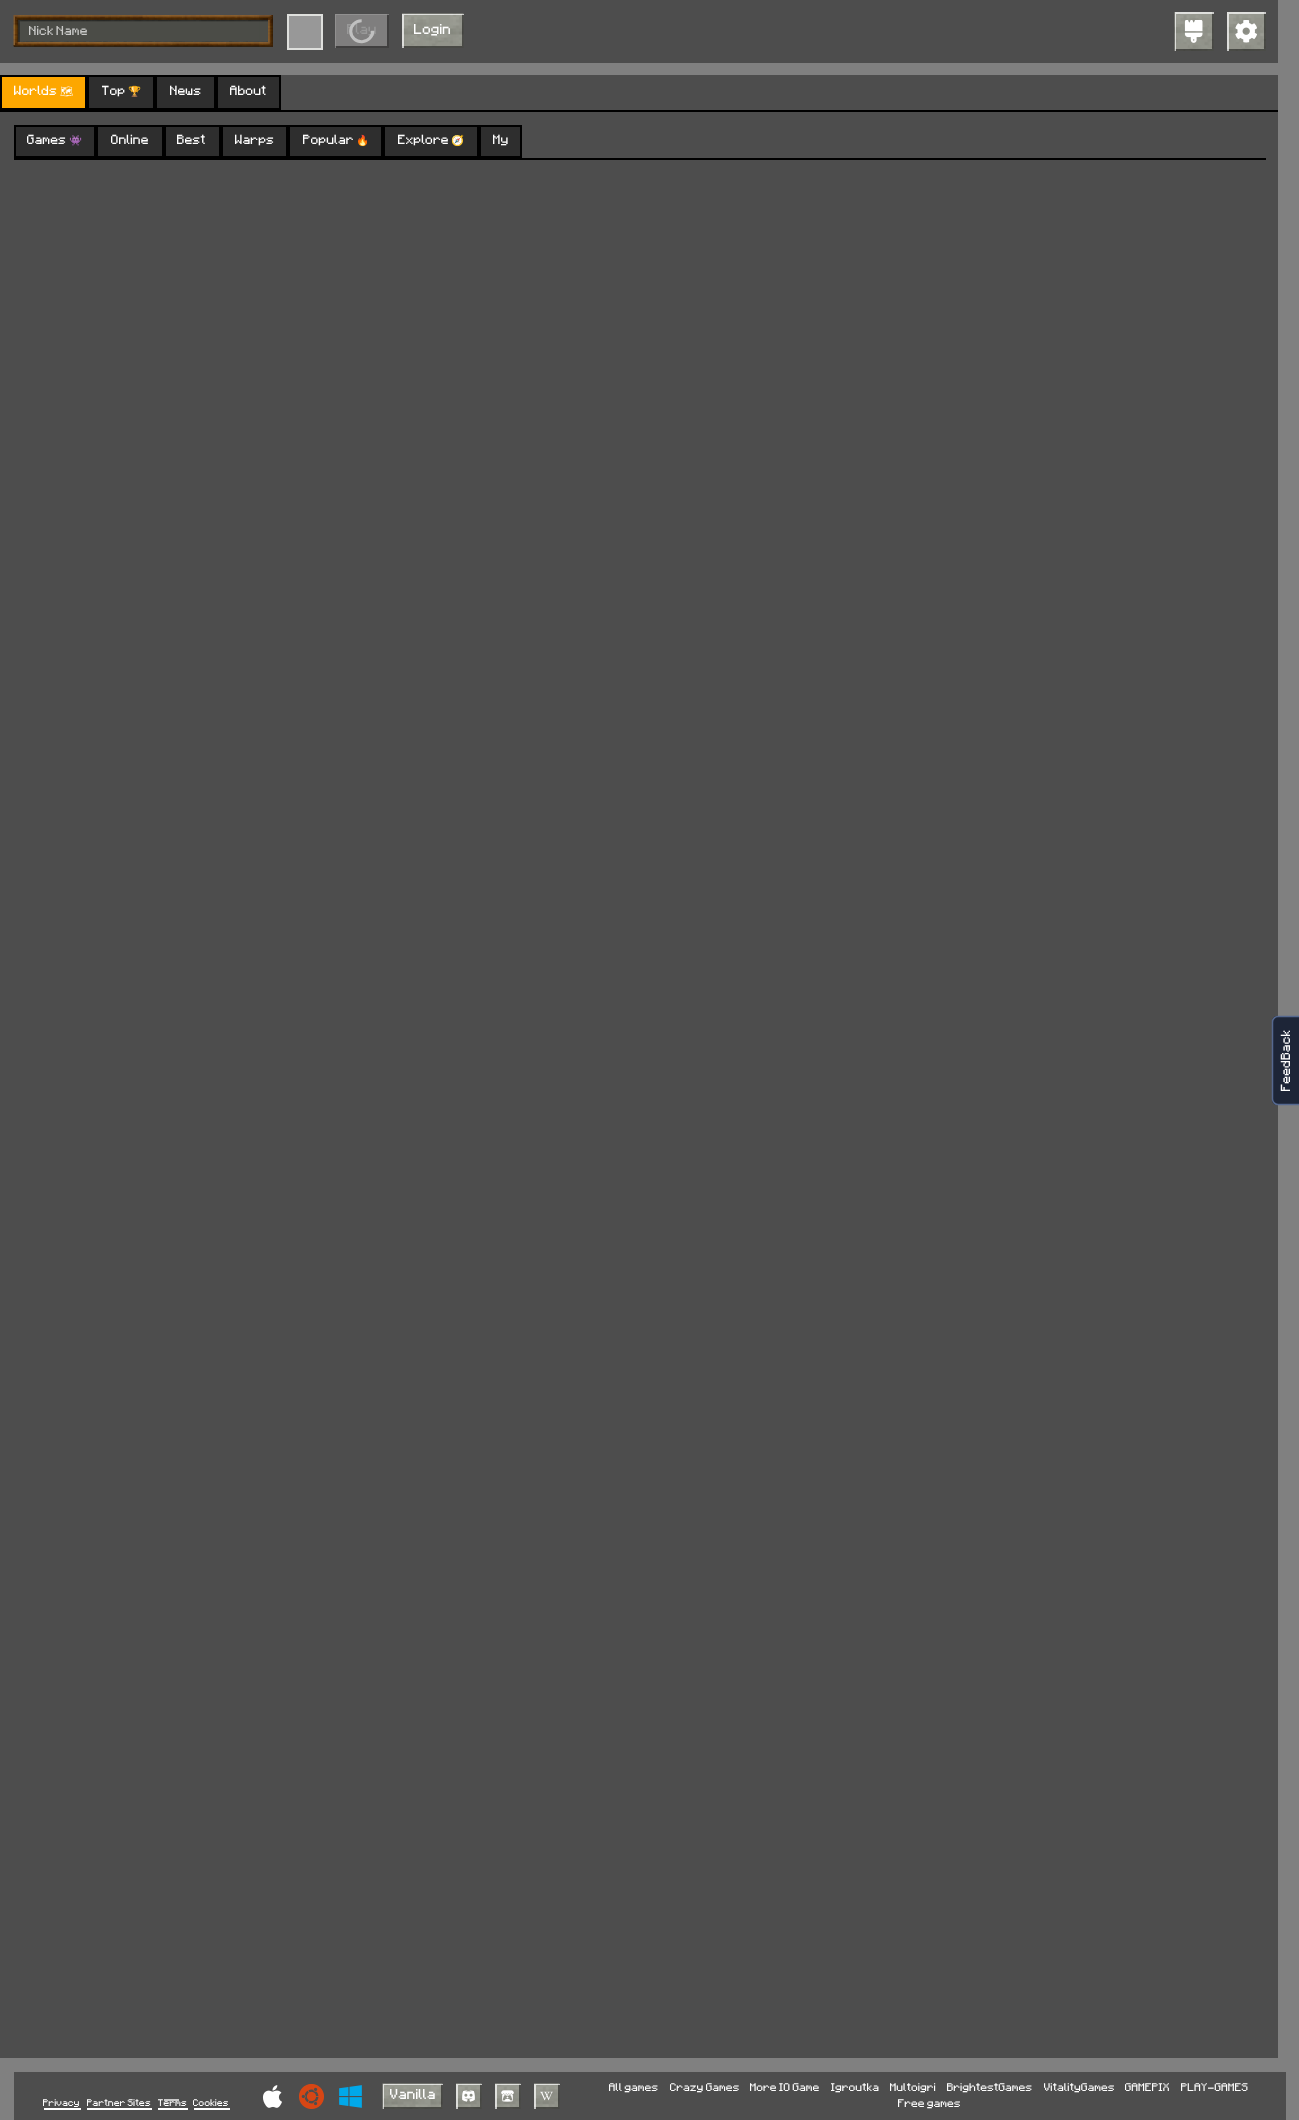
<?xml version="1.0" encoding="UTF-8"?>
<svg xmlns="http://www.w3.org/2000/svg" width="1299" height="2120">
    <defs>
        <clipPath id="clip1"><rect x="29" y="26" width="228" height="10"/></clipPath>
        <clipPath id="clip2"><rect x="335" y="14" width="54" height="34"/></clipPath>
        <clipPath id="clip3"><rect x="402" y="14" width="62" height="34"/></clipPath>
        <clipPath id="clip4"><rect x="1175" y="12" width="39" height="39"/></clipPath>
        <clipPath id="clip5"><rect x="383" y="2084" width="60" height="25"/></clipPath>
        <clipPath id="clip6"><rect x="456" y="2084" width="26" height="25"/></clipPath>
        <clipPath id="clip7"><rect x="495" y="2084" width="26" height="25"/></clipPath>
        <clipPath id="clip8"><rect x="534" y="2084" width="26" height="25"/></clipPath>
    </defs>
    <rect width="100%" height="100%" fill="#808080"/>
    <rect x="0" y="0" width="1278" height="63" fill="#4D4D4D"/>
    <rect x="14" y="46" width="259" height="1" fill="#1F1F1F"/>
    <image x="13" y="15" width="260" height="32" href="img_01.png"/>
    <g clip-path="url(#clip1)">
        <text x="29" y="35" font-family="'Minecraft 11'" font-size="10.5" fill="#C9C9C8">Nick Name</text>
    </g>
    <image x="259" y="15" width="14" height="32" href="img_02.png"/>
    <rect x="288" y="15" width="34" height="34" fill="#989898" stroke="#DFE0DD" stroke-width="2"/>
    <rect x="335" y="14" width="52" height="32" fill="#7F7E7E"/>
    <g clip-path="url(#clip2)">
        <path d="M 186 -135 H 537 V 196 H 186 Z M 333 12 H 387 V 46 H 333 Z" fill="#403F3F" fill-rule="evenodd"/>
        <path d="M 186 -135 H 537 V 196 H 186 Z M 336 15 H 390 V 50 H 336 Z" fill="#999999" fill-opacity="0.7" fill-rule="evenodd"/>
    </g>
    <text x="347" y="34" font-family="'Minecraft 11'" font-size="11.5" fill="#999999">Play</text>
    <image x="349" y="19" width="26" height="25" href="img_03.png"/>
    <rect x="463" y="14" width="1" height="34" fill="#989898"/>
    <image x="402" y="13" width="62" height="35" href="img_04.png"/>
    <g clip-path="url(#clip3)">
        <path d="M 254 -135 H 612 V 196 H 254 Z M 400 12 H 462 V 46 H 400 Z" fill="#000000" fill-opacity="0.5" fill-rule="evenodd"/>
        <path d="M 254 -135 H 612 V 196 H 254 Z M 404 15 H 465 V 50 H 404 Z" fill="#FFFFFF" fill-opacity="0.7" fill-rule="evenodd"/>
    </g>
    <text x="414" y="34" font-family="'Minecraft 11'" font-size="11.5" fill="#FFFFFF">Login</text>
    <rect x="1213" y="12" width="1" height="39" fill="#989898"/>
    <image x="1174" y="12" width="40" height="39" href="img_05.png"/>
    <g clip-path="url(#clip4)">
        <path d="M 1026 -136 H 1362 V 200 H 1026 Z M 1173 10 H 1212 V 49 H 1173 Z" fill="#000000" fill-opacity="0.5" fill-rule="evenodd"/>
        <path d="M 1026 -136 H 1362 V 200 H 1026 Z M 1176 14 H 1215 V 53 H 1176 Z" fill="#FFFFFF" fill-opacity="0.7" fill-rule="evenodd"/>
    </g>
    <image x="1184" y="20" width="19" height="23" href="img_06.png"/>
    <image x="1227" y="12" width="39" height="39" href="img_07.png"/>
    <image x="1235" y="20" width="22" height="23" href="img_08.png"/>
    <rect x="0" y="75" width="1278" height="1983" fill="#4D4D4D"/>
    <rect x="0" y="110" width="1278" height="2" fill="#000000"/>
    <rect x="1" y="76" width="85" height="33" fill="#FDA700" stroke="#000000" stroke-width="2"/>
    <text x="14" y="95" font-family="'Minecraft 11'" font-size="10.5" fill="#FFFFFF">Worlds</text>
    <text x="60" y="95" font-family="Noto Emoji" font-size="10.5" fill="#FFFFFF">🗺</text>
    <rect x="88" y="76" width="66" height="33" fill="#2E2E2E" stroke="#000000" stroke-width="2"/>
    <text x="102" y="95" font-family="'Minecraft 11'" font-size="10.5" fill="#FFFFFF">Top</text>
    <text x="128" y="95" font-family="Noto Color Emoji" font-size="10.5" fill="#FFFFFF">🏆</text>
    <rect x="156" y="76" width="59" height="33" fill="#2E2E2E" stroke="#000000" stroke-width="2"/>
    <text x="170" y="95" font-family="'Minecraft 11'" font-size="10.5" fill="#FFFFFF">News</text>
    <rect x="217" y="76" width="63" height="33" fill="#2E2E2E" stroke="#000000" stroke-width="2"/>
    <text x="230" y="95" font-family="'Minecraft 11'" font-size="10.5" fill="#FFFFFF">About</text>
    <rect x="14" y="158" width="1252" height="2" fill="#000000"/>
    <rect x="15" y="126" width="80" height="31" fill="#2E2E2E" stroke="#000000" stroke-width="2"/>
    <text x="27" y="144" font-family="'Minecraft 11'" font-size="10.5" fill="#FFFFFF">Games</text>
    <text x="69" y="144" font-family="Noto Color Emoji" font-size="10.5" fill="#FFFFFF">👾</text>
    <rect x="97" y="126" width="66" height="31" fill="#2E2E2E" stroke="#000000" stroke-width="2"/>
    <text x="111" y="144" font-family="'Minecraft 11'" font-size="10.5" fill="#FFFFFF">Online</text>
    <rect x="165" y="126" width="55" height="31" fill="#2E2E2E" stroke="#000000" stroke-width="2"/>
    <text x="177" y="144" font-family="'Minecraft 11'" font-size="10.5" fill="#FFFFFF">Best</text>
    <rect x="222" y="126" width="65" height="31" fill="#2E2E2E" stroke="#000000" stroke-width="2"/>
    <text x="235" y="144" font-family="'Minecraft 11'" font-size="10.5" fill="#FFFFFF">Warps</text>
    <rect x="289" y="126" width="93" height="31" fill="#2E2E2E" stroke="#000000" stroke-width="2"/>
    <text x="303" y="144" font-family="'Minecraft 11'" font-size="10.5" fill="#FFFFFF">Popular</text>
    <text x="356" y="144" font-family="Noto Color Emoji" font-size="10.5" fill="#FFFFFF">🔥</text>
    <rect x="384" y="126" width="94" height="31" fill="#2E2E2E" stroke="#000000" stroke-width="2"/>
    <text x="398" y="144" font-family="'Minecraft 11'" font-size="10.5" fill="#FFFFFF">Explore</text>
    <text x="451" y="144" font-family="Noto Color Emoji" font-size="10.5" fill="#FFFFFF">🧭</text>
    <rect x="480" y="126" width="41" height="31" fill="#2E2E2E" stroke="#000000" stroke-width="2"/>
    <text x="493" y="144" font-family="'Minecraft 11'" font-size="10.5" fill="#FFFFFF">My</text>
    <rect x="14" y="2072" width="1272" height="48" fill="#4D4D4D"/>
    <image x="262" y="2085" width="20" height="23" href="img_09.png"/>
    <image x="299" y="2084" width="25" height="25" href="img_10.png"/>
    <image x="339" y="2085" width="23" height="23" href="img_11.png"/>
    <rect x="442" y="2084" width="1" height="25" fill="#989898"/>
    <image x="382" y="2083" width="61" height="26" href="img_12.png"/>
    <g clip-path="url(#clip5)">
        <path d="M 234 1935 H 591 V 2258 H 234 Z M 381 2082 H 441 V 2107 H 381 Z" fill="#000000" fill-opacity="0.5" fill-rule="evenodd"/>
        <path d="M 234 1935 H 591 V 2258 H 234 Z M 384 2085 H 444 V 2111 H 384 Z" fill="#FFFFFF" fill-opacity="0.7" fill-rule="evenodd"/>
    </g>
    <text x="390" y="2099" font-family="'Minecraft 11'" font-size="11.5" fill="#FFFFFF">Vanilla</text>
    <rect x="481" y="2084" width="1" height="25" fill="#989898"/>
    <image x="456" y="2083" width="26" height="26" href="img_13.png"/>
    <g clip-path="url(#clip6)">
        <path d="M 308 1935 H 630 V 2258 H 308 Z M 454 2082 H 480 V 2107 H 454 Z" fill="#000000" fill-opacity="0.5" fill-rule="evenodd"/>
        <path d="M 308 1935 H 630 V 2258 H 308 Z M 458 2085 H 483 V 2111 H 458 Z" fill="#FFFFFF" fill-opacity="0.7" fill-rule="evenodd"/>
    </g>
    <image x="462" y="2090" width="13" height="12" href="img_14.png"/>
    <rect x="520" y="2084" width="1" height="25" fill="#989898"/>
    <image x="495" y="2083" width="26" height="26" href="img_13.png"/>
    <g clip-path="url(#clip7)">
        <path d="M 346 1935 H 669 V 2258 H 346 Z M 493 2082 H 519 V 2107 H 493 Z" fill="#000000" fill-opacity="0.5" fill-rule="evenodd"/>
        <path d="M 346 1935 H 669 V 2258 H 346 Z M 497 2085 H 522 V 2111 H 497 Z" fill="#FFFFFF" fill-opacity="0.7" fill-rule="evenodd"/>
    </g>
    <image x="501" y="2090" width="13" height="12" href="img_15.png"/>
    <rect x="559" y="2084" width="1" height="25" fill="#989898"/>
    <image x="534" y="2083" width="26" height="26" href="img_13.png"/>
    <g clip-path="url(#clip8)">
        <path d="M 386 1935 H 708 V 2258 H 386 Z M 532 2082 H 558 V 2107 H 532 Z" fill="#000000" fill-opacity="0.5" fill-rule="evenodd"/>
        <path d="M 386 1935 H 708 V 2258 H 386 Z M 536 2085 H 561 V 2111 H 536 Z" fill="#FFFFFF" fill-opacity="0.7" fill-rule="evenodd"/>
    </g>
    <image x="540" y="2091" width="13" height="10" href="img_16.png"/>
    <text x="609" y="2091" font-family="'Minecraft 11'" font-size="9" fill="#FFFFFF">All games</text>
    <text x="670" y="2091" font-family="'Minecraft 11'" font-size="9" fill="#FFFFFF">Crazy Games</text>
    <text x="750" y="2091" font-family="'Minecraft 11'" font-size="9" fill="#FFFFFF">More IO Game</text>
    <text x="831" y="2091" font-family="'Minecraft 11'" font-size="9" fill="#FFFFFF">Igroutka</text>
    <text x="890" y="2091" font-family="'Minecraft 11'" font-size="9" fill="#FFFFFF">Multoigri</text>
    <text x="947" y="2091" font-family="'Minecraft 11'" font-size="9" fill="#FFFFFF">BrightestGames</text>
    <text x="1044" y="2091" font-family="'Minecraft 11'" font-size="9" fill="#FFFFFF">VitalityGames</text>
    <text x="1125" y="2091" font-family="'Minecraft 11'" font-size="9" fill="#FFFFFF">GAMEPIX</text>
    <text x="1181" y="2091" font-family="'Minecraft 11'" font-size="9" fill="#FFFFFF">PLAY-GAMES</text>
    <text x="898" y="2107" font-family="'Minecraft 11'" font-size="9" fill="#FFFFFF">Free games</text>
    <text x="43" y="2106" font-family="'Minecraft 11'" font-size="7.75" fill="#FFFFFF">Privacy</text>
    <rect x="44" y="2108" width="37" height="2" fill="#FFFFFF"/>
    <text x="87" y="2106" font-family="'Minecraft 11'" font-size="7.75" fill="#FFFFFF">Partner Sites</text>
    <rect x="87" y="2108" width="65" height="2" fill="#FFFFFF"/>
    <rect x="164" y="2099" width="15" height="2" fill="#CACACA"/>
    <text x="158" y="2106" font-family="'Minecraft 11'" font-size="7.75" fill="#FFFFFF">Terms</text>
    <rect x="158" y="2108" width="30" height="2" fill="#FFFFFF"/>
    <text x="193" y="2106" font-family="'Minecraft 11'" font-size="7.75" fill="#FFFFFF">Cookies</text>
    <rect x="194" y="2108" width="36" height="2" fill="#FFFFFF"/>
    <path d="M 1272 1099 V 1022 C 1272 1018 1274 1016 1278 1016 H 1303 V 1105 H 1278 C 1274 1105 1272 1103 1272 1099 Z" fill="#1D2537"/>
    <path d="M 1272.5 1099 V 1022 C 1272.5 1019 1275 1016.5 1278 1016.5 H 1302.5 V 1104.5 H 1278 C 1275 1104.5 1272.5 1102 1272.5 1099 Z" fill="none" stroke="#55688F" stroke-width="1.5"/>
    <text x="1290" y="1091" transform="rotate(-90 1290 1091)" font-family="'Minecraft 11'" font-size="10.5" fill="#FFFFFF">FeedBack</text>
</svg>
